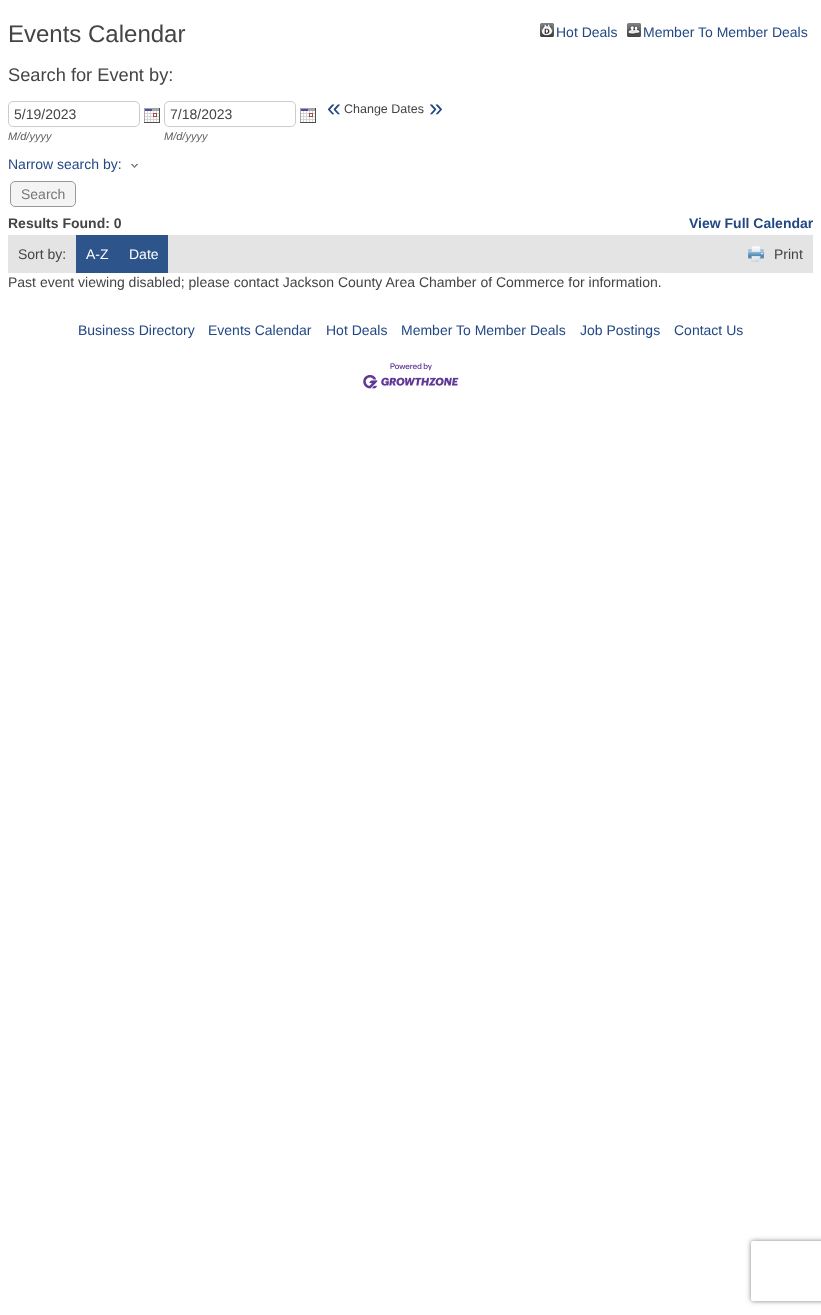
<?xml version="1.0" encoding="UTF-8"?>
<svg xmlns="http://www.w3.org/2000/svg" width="821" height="1315">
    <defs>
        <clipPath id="clip1"><path d="M 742 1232 H 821 V 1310 H 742 Z M 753 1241 H 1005 C 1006 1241 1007 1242 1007 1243 V 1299 C 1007 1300 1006 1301 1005 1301 H 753 C 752 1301 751 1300 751 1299 V 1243 C 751 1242 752 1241 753 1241 Z" clip-rule="evenodd"/></clipPath>
        <filter id="blur1" x="-50%" y="-200%" width="200%" height="500%"><feGaussianBlur stdDeviation="2.5"/></filter>
    </defs>
    <rect width="100%" height="100%" fill="#FFFFFF"/>
    <text x="8" y="42" font-family="Liberation Sans" font-size="24" fill="#444444">Events Calendar</text>
    <image x="540" y="23" width="14" height="14" href="img_01.png"/>
    <text x="556" y="37" font-family="Liberation Sans" font-size="14" fill="#224884">Hot Deals</text>
    <image x="627" y="23" width="14" height="14" href="img_02.png"/>
    <text x="643" y="37" font-family="Liberation Sans" font-size="14" fill="#224884">Member To Member Deals</text>
    <text x="8" y="81" font-family="Liberation Sans" font-size="18.25" fill="#444444">Search for Event by:</text>
    <rect x="8.5" y="101.5" width="131" height="25" rx="4.5" fill="none" stroke="#CCCCCC"/>
    <text x="14" y="119" font-family="Liberation Sans" font-size="14" fill="#444444">5/19/2023</text>
    <image x="144" y="108" width="16" height="15" href="img_03.png"/>
    <text x="8" y="140" font-family="Liberation Sans" font-size="11" font-style="italic" fill="#5E5E5E">M/d/yyyy</text>
    <rect x="164.5" y="101.5" width="131" height="25" rx="4.5" fill="none" stroke="#CCCCCC"/>
    <text x="170" y="119" font-family="Liberation Sans" font-size="14" fill="#444444">7/18/2023</text>
    <image x="300" y="108" width="16" height="15" href="img_03.png"/>
    <text x="164" y="140" font-family="Liberation Sans" font-size="11" font-style="italic" fill="#5E5E5E">M/d/yyyy</text>
    <text x="327" y="116" font-family="Liberation Sans" font-size="25" fill="#224884">«</text>
    <text x="344" y="113" font-family="Liberation Sans" font-size="12.5" fill="#444444">Change Dates</text>
    <text x="429" y="116" font-family="Liberation Sans" font-size="25" fill="#224884">»</text>
    <text x="8" y="169" font-family="Liberation Sans" font-size="14" fill="#224884">Narrow search by:</text>
    <image x="131" y="164" width="7" height="4" href="img_04.png"/>
    <rect x="10.5" y="181.5" width="65" height="25" rx="4.5" fill="#F4F4F4" stroke="#999999"/>
    <text x="21" y="199" font-family="Liberation Sans" font-size="14" fill="#777777">Search</text>
    <text x="8" y="228" font-family="Liberation Sans" font-size="14" font-weight="700" fill="#444444">Results Found: 0</text>
    <text x="689" y="228" font-family="Liberation Sans" font-size="14" font-weight="700" fill="#224884">View Full Calendar</text>
    <rect x="8" y="235" width="805" height="38" fill="#E4E4E4"/>
    <text x="18" y="259" font-family="Liberation Sans" font-size="14" fill="#444444">Sort by:</text>
    <rect x="76" y="235" width="92" height="38" fill="#2D548B"/>
    <text x="86" y="259" font-family="Liberation Sans" font-size="14" fill="#FFFFFF">A-Z</text>
    <text x="129" y="259" font-family="Liberation Sans" font-size="14" fill="#FFFFFF">Date</text>
    <image x="748" y="246" width="16" height="16" href="img_05.png"/>
    <text x="774" y="259" font-family="Liberation Sans" font-size="14" fill="#444444">Print</text>
    <text x="8" y="287" font-family="Liberation Sans" font-size="14" fill="#444444">Past event viewing disabled; please contact Jackson County Area Chamber of Commerce for information.</text>
    <text x="78" y="335" font-family="Liberation Sans" font-size="14" fill="#224884">Business Directory</text>
    <text x="208" y="335" font-family="Liberation Sans" font-size="14" fill="#224884">Events Calendar</text>
    <text x="326" y="335" font-family="Liberation Sans" font-size="14" fill="#224884">Hot Deals</text>
    <text x="401" y="335" font-family="Liberation Sans" font-size="14" fill="#224884">Member To Member Deals</text>
    <text x="580" y="335" font-family="Liberation Sans" font-size="14" fill="#224884">Job Postings</text>
    <text x="674" y="335" font-family="Liberation Sans" font-size="14" fill="#224884">Contact Us</text>
    <image x="363" y="363" width="96" height="26" href="img_06.png"/>
    <g clip-path="url(#clip1)">
        <rect x="751" y="1241" width="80" height="60" rx="2" fill="#808080" filter="url(#blur1)"/>
    </g>
</svg>
